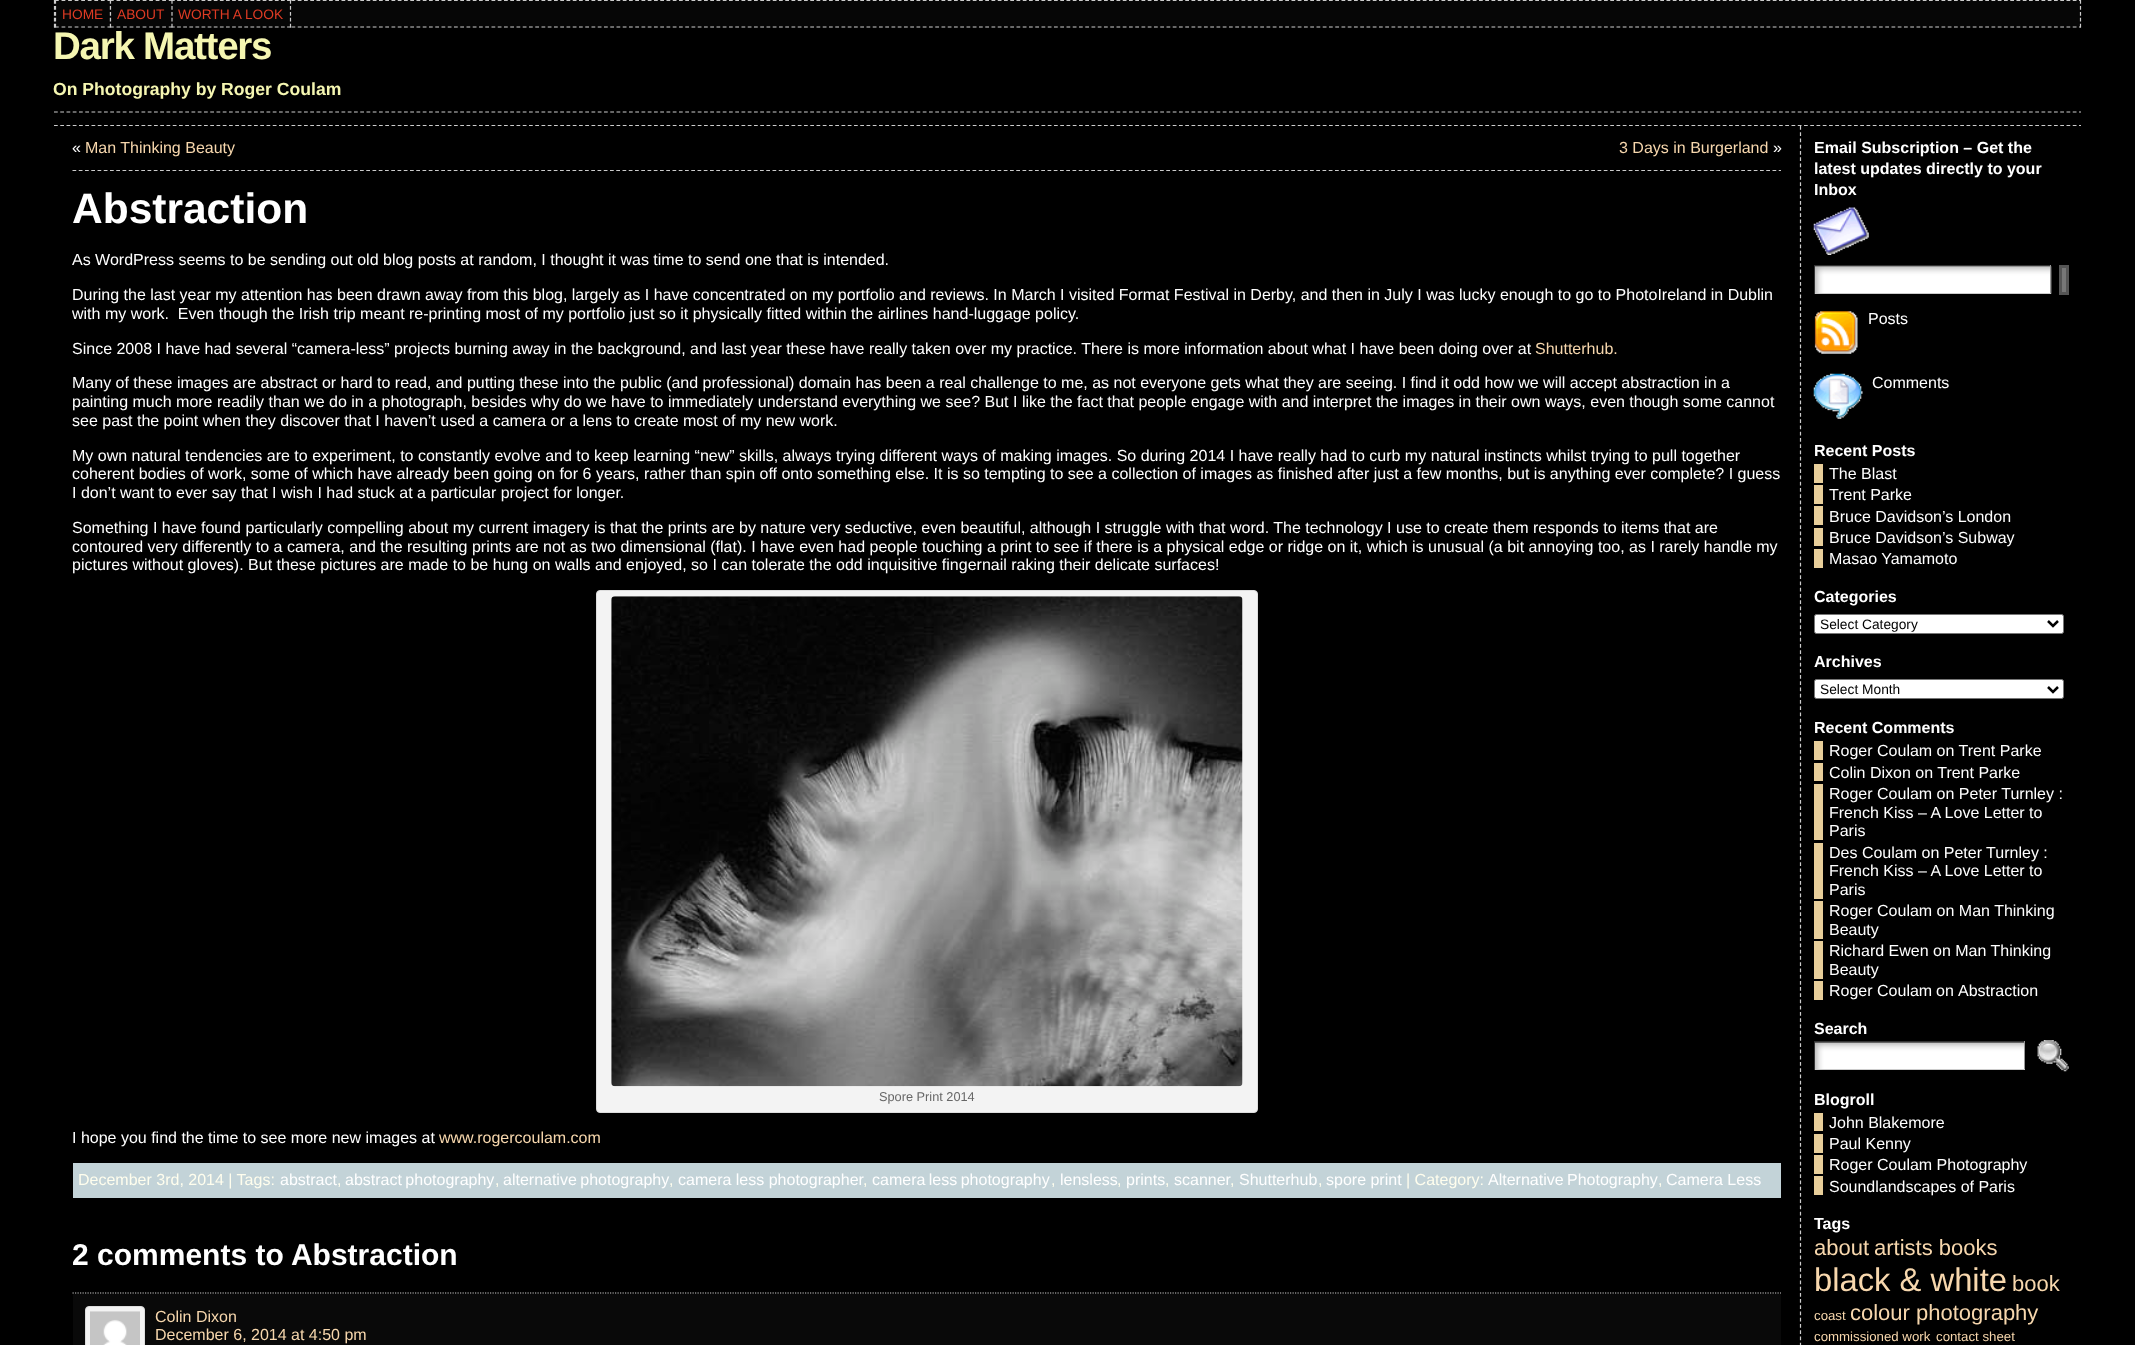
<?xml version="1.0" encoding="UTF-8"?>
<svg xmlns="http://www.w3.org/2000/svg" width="2135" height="1345">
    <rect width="100%" height="100%" fill="#000000"/>
    <rect x="54" y="0" width="2027" height="28" fill="#060606"/>
    <path d="M 54 0.5 H 2081" fill="none" stroke="#CCCCCC" stroke-width="1.2" stroke-dasharray="3.75 2.5"/>
    <path d="M 2080.5 0 V 27.5" fill="none" stroke="#CCCCCC" stroke-width="1.2" stroke-dasharray="3.75 2.19"/>
    <path d="M 54 27 H 2081" fill="none" stroke="#CCCCCC" stroke-width="1.2" stroke-dasharray="3.75 2.5"/>
    <path d="M 54.5 0 V 27.5" fill="none" stroke="#CCCCCC" stroke-width="1.2" stroke-dasharray="3.75 2.19"/>
    <rect x="55" y="0" width="53" height="28" fill="#060606"/>
    <path d="M 55 0.5 H 111" fill="none" stroke="#CCCCCC" stroke-width="1.2" stroke-dasharray="3.75 2.81"/>
    <path d="M 110.5 0 V 27.5" fill="none" stroke="#CCCCCC" stroke-width="1.2" stroke-dasharray="3.75 2.19"/>
    <path d="M 55 27 H 111" fill="none" stroke="#CCCCCC" stroke-width="1.2" stroke-dasharray="3.75 2.81"/>
    <path d="M 55.5 0 V 27.5" fill="none" stroke="#CCCCCC" stroke-width="1.2" stroke-dasharray="3.75 2.19"/>
    <text x="62" y="19" font-family="Liberation Sans" font-size="13.75" fill="#DE3B24">HOME</text>
    <rect x="110" y="0" width="61" height="28" fill="#060606"/>
    <path d="M 110 0.5 H 172.5 M 110 27 H 172.5" fill="none" stroke="#CCCCCC" stroke-width="1.2" stroke-dasharray="3.75 2.78"/>
    <path d="M 110.5 0 V 27.5" fill="none" stroke="#CCCCCC" stroke-width="1.2" stroke-dasharray="3.75 2.19"/>
    <text x="117" y="19" font-family="Liberation Sans" font-size="13.75" fill="#DE3B24">ABOUT</text>
    <rect x="171" y="0" width="118" height="28" fill="#060606"/>
    <path d="M 171 0.5 H 291" fill="none" stroke="#CCCCCC" stroke-width="1.2" stroke-dasharray="3.75 2.36"/>
    <path d="M 290.5 0 V 27.5" fill="none" stroke="#CCCCCC" stroke-width="1.2" stroke-dasharray="3.75 2.19"/>
    <path d="M 171 27 H 291" fill="none" stroke="#CCCCCC" stroke-width="1.2" stroke-dasharray="3.75 2.36"/>
    <path d="M 172 0 V 27.5" fill="none" stroke="#CCCCCC" stroke-width="1.2" stroke-dasharray="3.75 2.19"/>
    <text x="178" y="19" font-family="Liberation Sans" font-size="13.75" fill="#DE3B24">WORTH A LOOK</text>
    <text x="53" y="59" font-family="Liberation Sans" font-size="38.5" font-weight="700" letter-spacing="-1.25" fill="#F5F6B1">Dark Matters</text>
    <text x="53" y="95" font-family="Liberation Sans" font-size="17.6" font-weight="700" fill="#F5F6B1">On Photography by Roger Coulam</text>
    <path d="M 54 112 H 2081" fill="none" stroke="#CCCCCC" stroke-width="1.2" stroke-dasharray="3.75 2.5"/>
    <path d="M 1800.5 126 V 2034" fill="none" stroke="#CCCCCC" stroke-width="1.2" stroke-dasharray="3.75 2.49"/>
    <path d="M 54 125.5 H 2081" fill="none" stroke="#CCCCCC" stroke-width="1.2" stroke-dasharray="3.75 2.5"/>
    <path d="M 72.5 170.5 H 1781" fill="none" stroke="#CCCCCC" stroke-width="1.2" stroke-dasharray="3.75 2.5"/>
    <text x="72" y="153" font-family="Liberation Sans" font-size="16" fill="#FFFFFF">«</text>
    <text x="85" y="153" font-family="Liberation Sans" font-size="16" fill="#F7D7AD">Man Thinking Beauty</text>
    <text x="1619" y="153" font-family="Liberation Sans" font-size="16" fill="#F7D7AD">3 Days in Burgerland</text>
    <text x="1773" y="153" font-family="Liberation Sans" font-size="16" fill="#FFFFFF">»</text>
    <text x="72" y="223" font-family="Liberation Sans" font-size="42.5" font-weight="700" fill="#FFFFFF">Abstraction</text>
    <text x="72" y="265" font-family="Liberation Sans" font-size="16" fill="#FFFFFF">As WordPress seems to be sending out old blog posts at random, I thought it was time to send one that is intended.</text>
    <text font-family="Liberation Sans" font-size="16" fill="#FFFFFF" xml:space="preserve"><tspan x="72" y="300">During the last year my attention has been drawn away from this blog, largely as I have concentrated on my portfolio and reviews. In March I visited Format Festival in Derby, and then in July I was lucky enough to go to PhotoIreland in Dublin</tspan><tspan x="72" y="319">with my work.  Even though the Irish trip meant re-printing most of my portfolio just so it physically fitted within the airlines hand-luggage policy.</tspan></text>
    <text x="72" y="354" font-family="Liberation Sans" font-size="16" fill="#FFFFFF">Since 2008 I have had several “camera-less” projects burning away in the background, and last year these have really taken over my practice. There is more information about what I have been doing over at</text>
    <text x="1535" y="354" font-family="Liberation Sans" font-size="16" fill="#F7D7AD">Shutterhub.</text>
    <text font-family="Liberation Sans" font-size="16" fill="#FFFFFF">
        <tspan x="72" y="388">Many of these images are abstract or hard to read, and putting these into the public (and professional) domain has been a real challenge to me, as not everyone gets what they are seeing. I find it odd how we will accept abstraction in a</tspan>
        <tspan x="72" y="407">painting much more readily than we do in a photograph, besides why do we have to immediately understand everything we see? But I like the fact that people engage with and interpret the images in their own ways, even though some cannot</tspan>
        <tspan x="72" y="426">see past the point when they discover that I haven’t used a camera or a lens to create most of my new work.</tspan>
    </text>
    <text font-family="Liberation Sans" font-size="16" fill="#FFFFFF">
        <tspan x="72" y="461">My own natural tendencies are to experiment, to constantly evolve and to keep learning “new” skills, always trying different ways of making images. So during 2014 I have really had to curb my natural instincts whilst trying to pull together</tspan>
        <tspan x="72" y="479">coherent bodies of work, some of which have already been going on for 6 years, rather than spin off onto something else. It is so tempting to see a collection of images as finished after just a few months, but is anything ever complete? I guess</tspan>
        <tspan x="72" y="498">I don’t want to ever say that I wish I had stuck at a particular project for longer.</tspan>
    </text>
    <text font-family="Liberation Sans" font-size="16" fill="#FFFFFF">
        <tspan x="72" y="533">Something I have found particularly compelling about my current imagery is that the prints are by nature very seductive, even beautiful, although I struggle with that word. The technology I use to create them responds to items that are</tspan>
        <tspan x="72" y="552">contoured very differently to a camera, and the resulting prints are not as two dimensional (flat). I have even had people touching a print to see if there is a physical edge or ridge on it, which is unusual (a bit annoying too, as I rarely handle my</tspan>
        <tspan x="72" y="570">pictures without gloves). But these pictures are made to be hung on walls and enjoyed, so I can tolerate the odd inquisitive fingernail raking their delicate surfaces!</tspan>
    </text>
    <rect x="596.5" y="590.5" width="661" height="522" rx="3.5" fill="#F3F3F3" stroke="#DDDDDD"/>
    <image x="611" y="596" width="632" height="491" href="img_01.png"/>
    <text x="879" y="1101" font-family="Liberation Sans" font-size="12.75" fill="#666666">Spore Print 2014</text>
    <text x="72" y="1143" font-family="Liberation Sans" font-size="16" fill="#FFFFFF">I hope you find the time to see more new images at</text>
    <text x="439" y="1143" font-family="Liberation Sans" font-size="16" fill="#F7D7AD">www.rogercoulam.com</text>
    <rect x="73" y="1163" width="1708" height="35" fill="#C3D3D8"/>
    <text x="78" y="1185" font-family="Liberation Sans" font-size="16" fill="#FFFEEE">December 3rd, 2014 | Tags:</text>
    <text x="280" y="1185" font-family="Liberation Sans" font-size="16" fill="#FFFFFF">abstract</text>
    <text x="337" y="1185" font-family="Liberation Sans" font-size="16" fill="#FFFEEE">,</text>
    <text x="345" y="1185" word-spacing="-1" font-family="Liberation Sans" font-size="16" fill="#FFFFFF">abstract photography</text>
    <text x="495" y="1185" font-family="Liberation Sans" font-size="16" fill="#FFFEEE">,</text>
    <text x="503" y="1185" word-spacing="-1" font-family="Liberation Sans" font-size="16" fill="#FFFFFF">alternative photography</text>
    <text x="669" y="1185" font-family="Liberation Sans" font-size="16" fill="#FFFEEE">,</text>
    <text x="678" y="1185" font-family="Liberation Sans" font-size="16" fill="#FFFFFF">camera less photographer</text>
    <text x="863" y="1185" font-family="Liberation Sans" font-size="16" fill="#FFFEEE">,</text>
    <text x="872" y="1185" word-spacing="-1" font-family="Liberation Sans" font-size="16" fill="#FFFFFF">camera less photography</text>
    <text x="1051" y="1185" font-family="Liberation Sans" font-size="16" fill="#FFFEEE">,</text>
    <text x="1060" y="1185" font-family="Liberation Sans" font-size="16" fill="#FFFFFF">lensless</text>
    <text x="1117" y="1185" font-family="Liberation Sans" font-size="16" fill="#FFFEEE">,</text>
    <text x="1126" y="1185" font-family="Liberation Sans" font-size="16" fill="#FFFFFF">prints</text>
    <text x="1165" y="1185" font-family="Liberation Sans" font-size="16" fill="#FFFEEE">,</text>
    <text x="1174" y="1185" font-family="Liberation Sans" font-size="16" fill="#FFFFFF">scanner</text>
    <text x="1230" y="1185" font-family="Liberation Sans" font-size="16" fill="#FFFEEE">,</text>
    <text x="1239" y="1185" font-family="Liberation Sans" font-size="16" fill="#FFFFFF">Shutterhub</text>
    <text x="1318" y="1185" font-family="Liberation Sans" font-size="16" fill="#FFFEEE">,</text>
    <text x="1326" y="1185" font-family="Liberation Sans" font-size="16" fill="#FFFFFF">spore print</text>
    <text x="1406" y="1185" font-family="Liberation Sans" font-size="16" fill="#FFFEEE">| Category:</text>
    <text x="1488" y="1185" word-spacing="-1" font-family="Liberation Sans" font-size="16" fill="#FFFFFF">Alternative Photography</text>
    <text x="1658" y="1185" font-family="Liberation Sans" font-size="16" fill="#FFFEEE">,</text>
    <text x="1666" y="1185" font-family="Liberation Sans" font-size="16" fill="#FFFFFF">Camera Less</text>
    <text x="72" y="1265" font-family="Liberation Sans" font-size="30" font-weight="700" fill="#FFFFFF">2 comments to Abstraction</text>
    <path d="M 72.5 1293 H 1781" fill="none" stroke="#CCCCCC" stroke-width="1.2" stroke-dasharray="1.25 1.25"/>
    <rect x="73" y="1294" width="1708" height="51" fill="#090909"/>
    <rect x="85.5" y="1306.5" width="59" height="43" rx="3.5" fill="#F3F3F3" stroke="#DDDDDD"/>
    <image x="90" y="1311" width="50" height="34" href="img_02.png"/>
    <text font-family="Liberation Sans" font-size="16" fill="#F7D7AD">
        <tspan x="155" y="1322">Colin Dixon</tspan>
        <tspan x="155" y="1340">December 6, 2014 at 4:50 pm</tspan>
    </text>
    <text font-family="Liberation Sans" font-size="16" font-weight="700" fill="#FFFFFF">
        <tspan x="1814" y="153">Email Subscription – Get the</tspan>
        <tspan x="1814" y="174">latest updates directly to your</tspan>
        <tspan x="1814" y="195">Inbox</tspan>
    </text>
    <image x="1813" y="207" width="56" height="48" href="img_03.png"/>
    <image x="1815" y="266" width="237" height="28" href="img_04.png"/>
    <rect x="1814" y="265" width="237" height="1" fill="#333333"/>
    <rect x="2050" y="265" width="1" height="29" fill="#999999"/>
    <rect x="1814" y="293" width="237" height="1" fill="#CCCCCC"/>
    <rect x="1814" y="265" width="1" height="29" fill="#333333"/>
    <rect x="2060.5" y="266.5" width="7" height="27" fill="#777777" stroke="#555555" stroke-width="3"/>
    <image x="1814" y="311" width="44" height="43" href="img_05.png"/>
    <text x="1868" y="324" font-family="Liberation Sans" font-size="16" fill="#FFFFFF">Posts</text>
    <image x="1813" y="373" width="50" height="46" href="img_06.png"/>
    <text x="1872" y="388" font-family="Liberation Sans" font-size="16" fill="#FFFFFF">Comments</text>
    <text x="1814" y="456" font-family="Liberation Sans" font-size="16" font-weight="700" fill="#FFFFFF">Recent Posts</text>
    <rect x="1814" y="464" width="9" height="19" fill="#E8CE9A"/>
    <text x="1829" y="479" font-family="Liberation Sans" font-size="16" fill="#FFFFFF">The Blast</text>
    <rect x="1814" y="485" width="9" height="19" fill="#E8CE9A"/>
    <text x="1829" y="500" font-family="Liberation Sans" font-size="16" fill="#FFFFFF">Trent Parke</text>
    <rect x="1814" y="506" width="9" height="19" fill="#E8CE9A"/>
    <text x="1829" y="522" font-family="Liberation Sans" font-size="16" fill="#FFFFFF">Bruce Davidson’s London</text>
    <rect x="1814" y="528" width="9" height="18" fill="#E8CE9A"/>
    <text x="1829" y="543" font-family="Liberation Sans" font-size="16" fill="#FFFFFF">Bruce Davidson’s Subway</text>
    <rect x="1814" y="549" width="9" height="19" fill="#E8CE9A"/>
    <text x="1829" y="564" font-family="Liberation Sans" font-size="16" fill="#FFFFFF">Masao Yamamoto</text>
    <text x="1814" y="602" font-family="Liberation Sans" font-size="16" font-weight="700" fill="#FFFFFF">Categories</text>
    <rect x="1814.5" y="614.5" width="249" height="19" rx="2" fill="#FFFFFF" stroke="#767676"/>
    <path d="M 2048 621 L 2053 626 L 2058 621" fill="none" stroke="#000000" stroke-width="2.5"/>
    <text x="1820" y="629" font-family="Liberation Sans" font-size="13.75" fill="#000000">Select Category</text>
    <text x="1814" y="667" font-family="Liberation Sans" font-size="16" font-weight="700" fill="#FFFFFF">Archives</text>
    <rect x="1814.5" y="679.5" width="249" height="19" rx="2" fill="#FFFFFF" stroke="#767676"/>
    <path d="M 2048 687 L 2053 692 L 2058 687" fill="none" stroke="#000000" stroke-width="2.5"/>
    <text x="1820" y="694" font-family="Liberation Sans" font-size="13.75" fill="#000000">Select Month</text>
    <text x="1814" y="733" font-family="Liberation Sans" font-size="16" font-weight="700" fill="#FFFFFF">Recent Comments</text>
    <rect x="1814" y="741" width="9" height="19" fill="#E8CE9A"/>
    <text x="1829" y="756" font-family="Liberation Sans" font-size="16" fill="#FFFFFF">Roger Coulam on Trent Parke</text>
    <rect x="1814" y="763" width="9" height="18" fill="#E8CE9A"/>
    <text x="1829" y="778" font-family="Liberation Sans" font-size="16" fill="#FFFFFF">Colin Dixon on Trent Parke</text>
    <rect x="1814" y="784" width="9" height="56" fill="#E8CE9A"/>
    <text font-family="Liberation Sans" font-size="16" fill="#FFFFFF">
        <tspan x="1829" y="799">Roger Coulam on Peter Turnley :</tspan>
        <tspan x="1829" y="818">French Kiss – A Love Letter to</tspan>
        <tspan x="1829" y="836">Paris</tspan>
    </text>
    <rect x="1814" y="843" width="9" height="56" fill="#E8CE9A"/>
    <text font-family="Liberation Sans" font-size="16" fill="#FFFFFF">
        <tspan x="1829" y="858">Des Coulam on Peter Turnley :</tspan>
        <tspan x="1829" y="876">French Kiss – A Love Letter to</tspan>
        <tspan x="1829" y="895">Paris</tspan>
    </text>
    <rect x="1814" y="901" width="9" height="38" fill="#E8CE9A"/>
    <text font-family="Liberation Sans" font-size="16" fill="#FFFFFF">
        <tspan x="1829" y="916">Roger Coulam on Man Thinking</tspan>
        <tspan x="1829" y="935">Beauty</tspan>
    </text>
    <rect x="1814" y="941" width="9" height="38" fill="#E8CE9A"/>
    <text font-family="Liberation Sans" font-size="16" fill="#FFFFFF">
        <tspan x="1829" y="956">Richard Ewen on Man Thinking</tspan>
        <tspan x="1829" y="975">Beauty</tspan>
    </text>
    <rect x="1814" y="981" width="9" height="19" fill="#E8CE9A"/>
    <text x="1829" y="996" font-family="Liberation Sans" font-size="16" fill="#FFFFFF">Roger Coulam</text>
    <text x="1936" y="996" font-family="Liberation Sans" font-size="16" fill="#FFFFFF">on</text>
    <text x="1958" y="996" font-family="Liberation Sans" font-size="16" fill="#FFFFFF">Abstraction</text>
    <text x="1814" y="1034" font-family="Liberation Sans" font-size="16" font-weight="700" fill="#FFFFFF">Search</text>
    <image x="1815" y="1042" width="209" height="27" href="img_07.png"/>
    <rect x="1814" y="1041" width="211" height="1" fill="#333333"/>
    <rect x="2024" y="1041" width="1" height="29" fill="#999999"/>
    <rect x="1814" y="1069" width="211" height="1" fill="#CCCCCC"/>
    <rect x="1814" y="1041" width="1" height="29" fill="#333333"/>
    <image x="2037" y="1040" width="32" height="32" href="img_08.png"/>
    <text x="1814" y="1105" font-family="Liberation Sans" font-size="16" font-weight="700" fill="#FFFFFF">Blogroll</text>
    <rect x="1814" y="1113" width="9" height="18" fill="#E8CE9A"/>
    <text x="1829" y="1128" font-family="Liberation Sans" font-size="16" fill="#FFFFFF">John Blakemore</text>
    <rect x="1814" y="1134" width="9" height="19" fill="#E8CE9A"/>
    <text x="1829" y="1149" font-family="Liberation Sans" font-size="16" fill="#FFFFFF">Paul Kenny</text>
    <rect x="1814" y="1155" width="9" height="19" fill="#E8CE9A"/>
    <text x="1829" y="1170" font-family="Liberation Sans" font-size="16" fill="#FFFFFF">Roger Coulam Photography</text>
    <rect x="1814" y="1176" width="9" height="19" fill="#E8CE9A"/>
    <text x="1829" y="1192" font-family="Liberation Sans" font-size="16" fill="#FFFFFF">Soundlandscapes of Paris</text>
    <text x="1814" y="1229" font-family="Liberation Sans" font-size="16" font-weight="700" fill="#FFFFFF">Tags</text>
    <text x="1814" y="1255" font-family="Liberation Sans" font-size="22" fill="#F7D7AD">about</text>
    <text x="1874" y="1255" font-family="Liberation Sans" font-size="22" fill="#F7D7AD">artists books</text>
    <text x="1814" y="1291" font-family="Liberation Sans" font-size="32.75" fill="#F7D7AD">black &amp; white</text>
    <text x="2012" y="1291" font-family="Liberation Sans" font-size="22" fill="#F7D7AD">book</text>
    <text x="1814" y="1320" font-family="Liberation Sans" font-size="13.25" fill="#F7D7AD">coast</text>
    <text x="1850" y="1320" font-family="Liberation Sans" font-size="22" fill="#F7D7AD">colour photography</text>
    <text x="1814" y="1341" font-family="Liberation Sans" font-size="13.25" fill="#F7D7AD">commissioned work</text>
    <text x="1936" y="1341" font-family="Liberation Sans" font-size="13.25" fill="#F7D7AD">contact sheet</text>
</svg>
